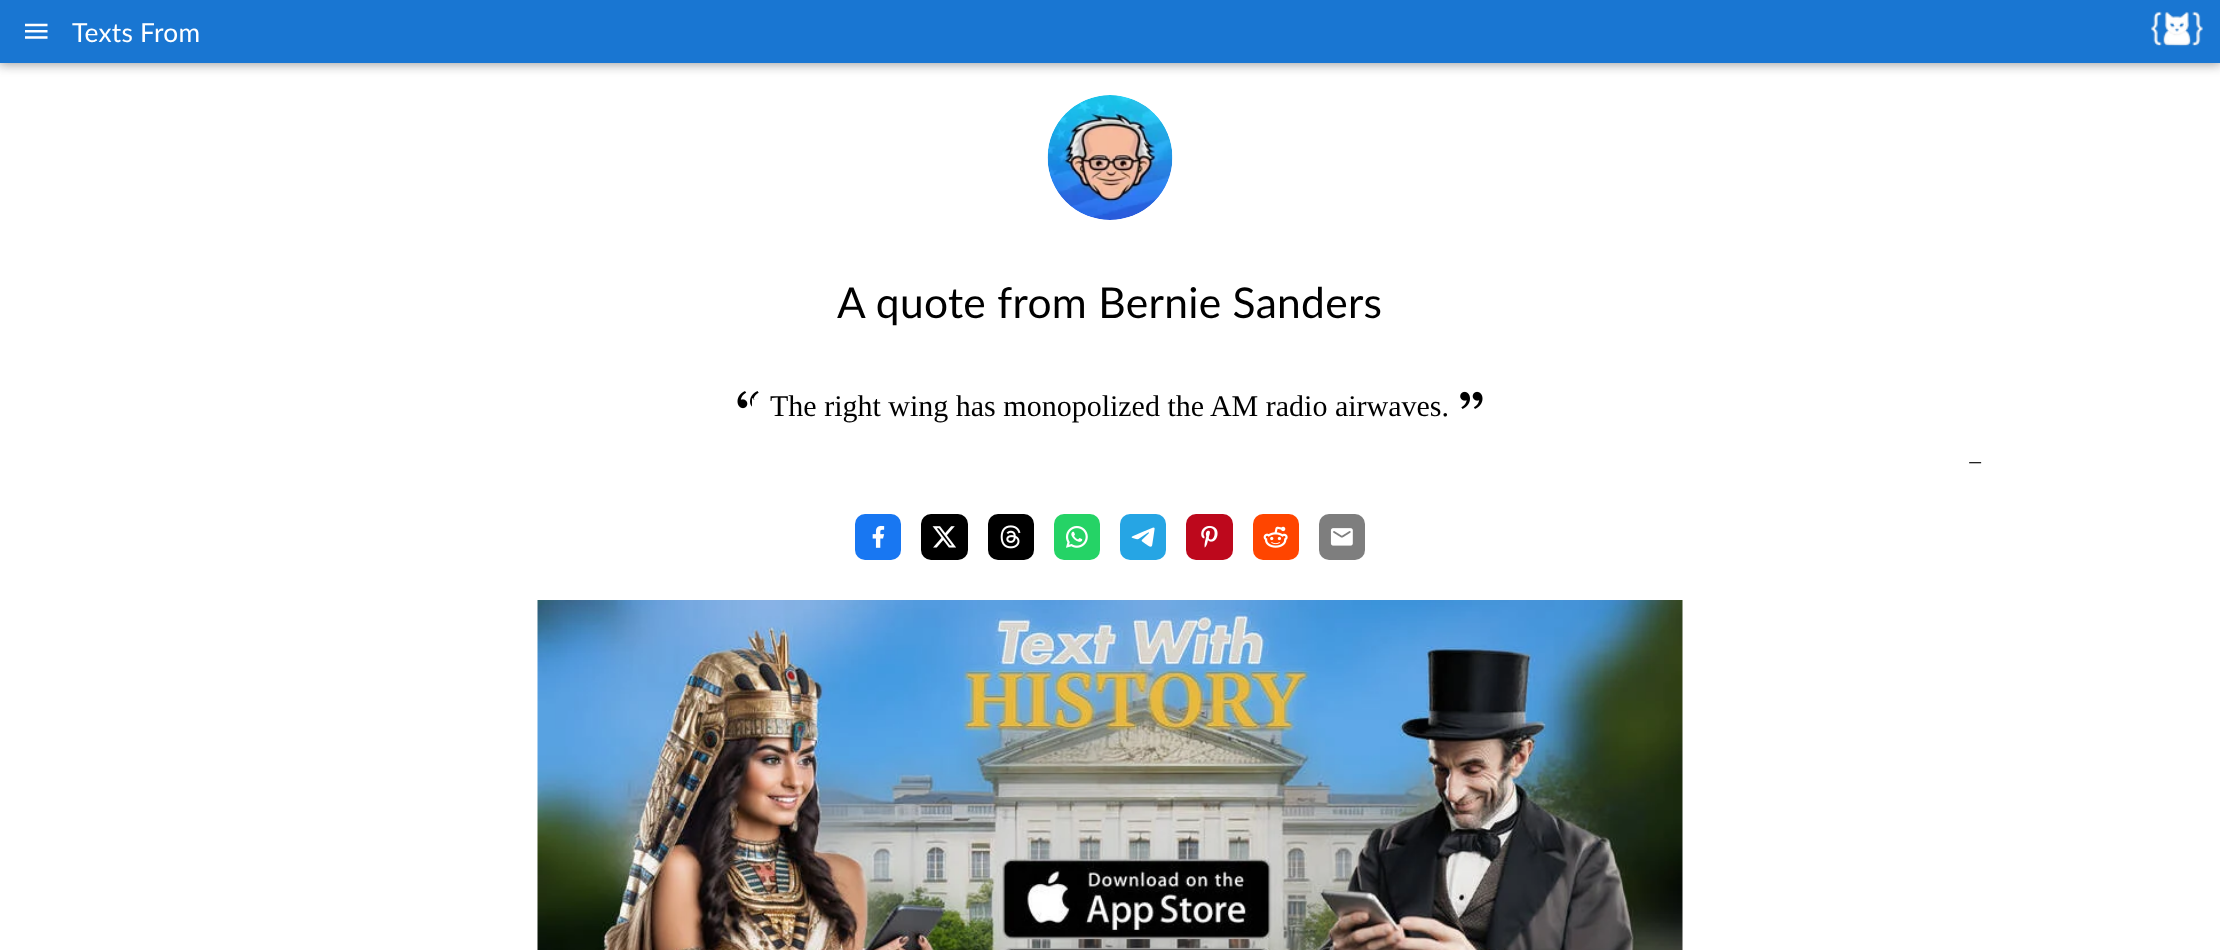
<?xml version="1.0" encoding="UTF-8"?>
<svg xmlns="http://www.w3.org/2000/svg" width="2220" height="950">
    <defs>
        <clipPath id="clip1"><path d="M 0 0 H 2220 V 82 H 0 Z M 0 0 H 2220 V 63 H 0 Z" clip-rule="evenodd"/></clipPath>
        <filter id="blur1" x="-50%" y="-200%" width="200%" height="500%"><feGaussianBlur stdDeviation="6"/></filter>
        <clipPath id="clip2"><path d="M 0 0 H 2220 V 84 H 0 Z M 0 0 H 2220 V 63 H 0 Z" clip-rule="evenodd"/></clipPath>
    </defs>
    <rect width="100%" height="100%" fill="#FFFFFF"/>
    <rect x="0" y="0" width="2220" height="63" fill="#1976D2"/>
    <image x="25" y="23" width="23" height="16" href="img_01.png"/>
    <image x="2151" y="11" width="52" height="36" href="img_02.png"/>
    <g clip-path="url(#clip1)">
        <rect x="0" y="0" width="2220" height="63" fill="#000000" fill-opacity="0.24" filter="url(#blur1)"/>
    </g>
    <g clip-path="url(#clip2)">
        <rect x="-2" y="-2" width="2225" height="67" fill="#000000" fill-opacity="0.2" filter="url(#blur1)"/>
    </g>
    <text x="72" y="42" font-family="Lato" font-size="26.25" letter-spacing="0.25" fill="#FFFFFF">Texts From</text>
    <image x="1047" y="95" width="126" height="125" href="img_03.png"/>
    <text x="837" y="318" font-family="Lato" font-size="42.5" letter-spacing="0.3" fill="#000000">A quote from Bernie Sanders</text>
    <image x="737" y="391" width="22" height="18" href="img_04.png"/>
    <text x="770" y="416" font-family="Liberation Serif" font-size="30" fill="#000000">The right wing has monopolized the AM radio airwaves.</text>
    <image x="1460" y="391" width="23" height="18" href="img_05.png"/>
    <text x="1968" y="468" font-family="Lato" font-size="18" fill="#000000">—</text>
    <rect x="855" y="514" width="46" height="46" rx="10" fill="#1877F2"/>
    <image x="872" y="525" width="13" height="23" href="img_06.png"/>
    <rect x="921" y="514" width="47" height="46" rx="10" fill="#000000"/>
    <image x="932" y="526" width="24" height="22" href="img_07.png"/>
    <rect x="988" y="514" width="46" height="46" rx="10" fill="#000000"/>
    <image x="1000" y="525" width="21" height="24" href="img_08.png"/>
    <rect x="1054" y="514" width="46" height="46" rx="10" fill="#25D366"/>
    <image x="1065" y="525" width="23" height="23" href="img_09.png"/>
    <rect x="1120" y="514" width="46" height="46" rx="10" fill="#26A5E4"/>
    <image x="1131" y="527" width="24" height="20" href="img_10.png"/>
    <rect x="1186" y="514" width="47" height="46" rx="10" fill="#BD081C"/>
    <image x="1201" y="525" width="17" height="23" href="img_11.png"/>
    <rect x="1253" y="514" width="46" height="46" rx="10" fill="#FF4500"/>
    <image x="1263" y="526" width="25" height="22" href="img_12.png"/>
    <rect x="1319" y="514" width="46" height="46" rx="10" fill="#7E7E7E"/>
    <image x="1330" y="528" width="23" height="18" href="img_13.png"/>
    <image x="537" y="600" width="1146" height="350" href="img_14.png"/>
</svg>
